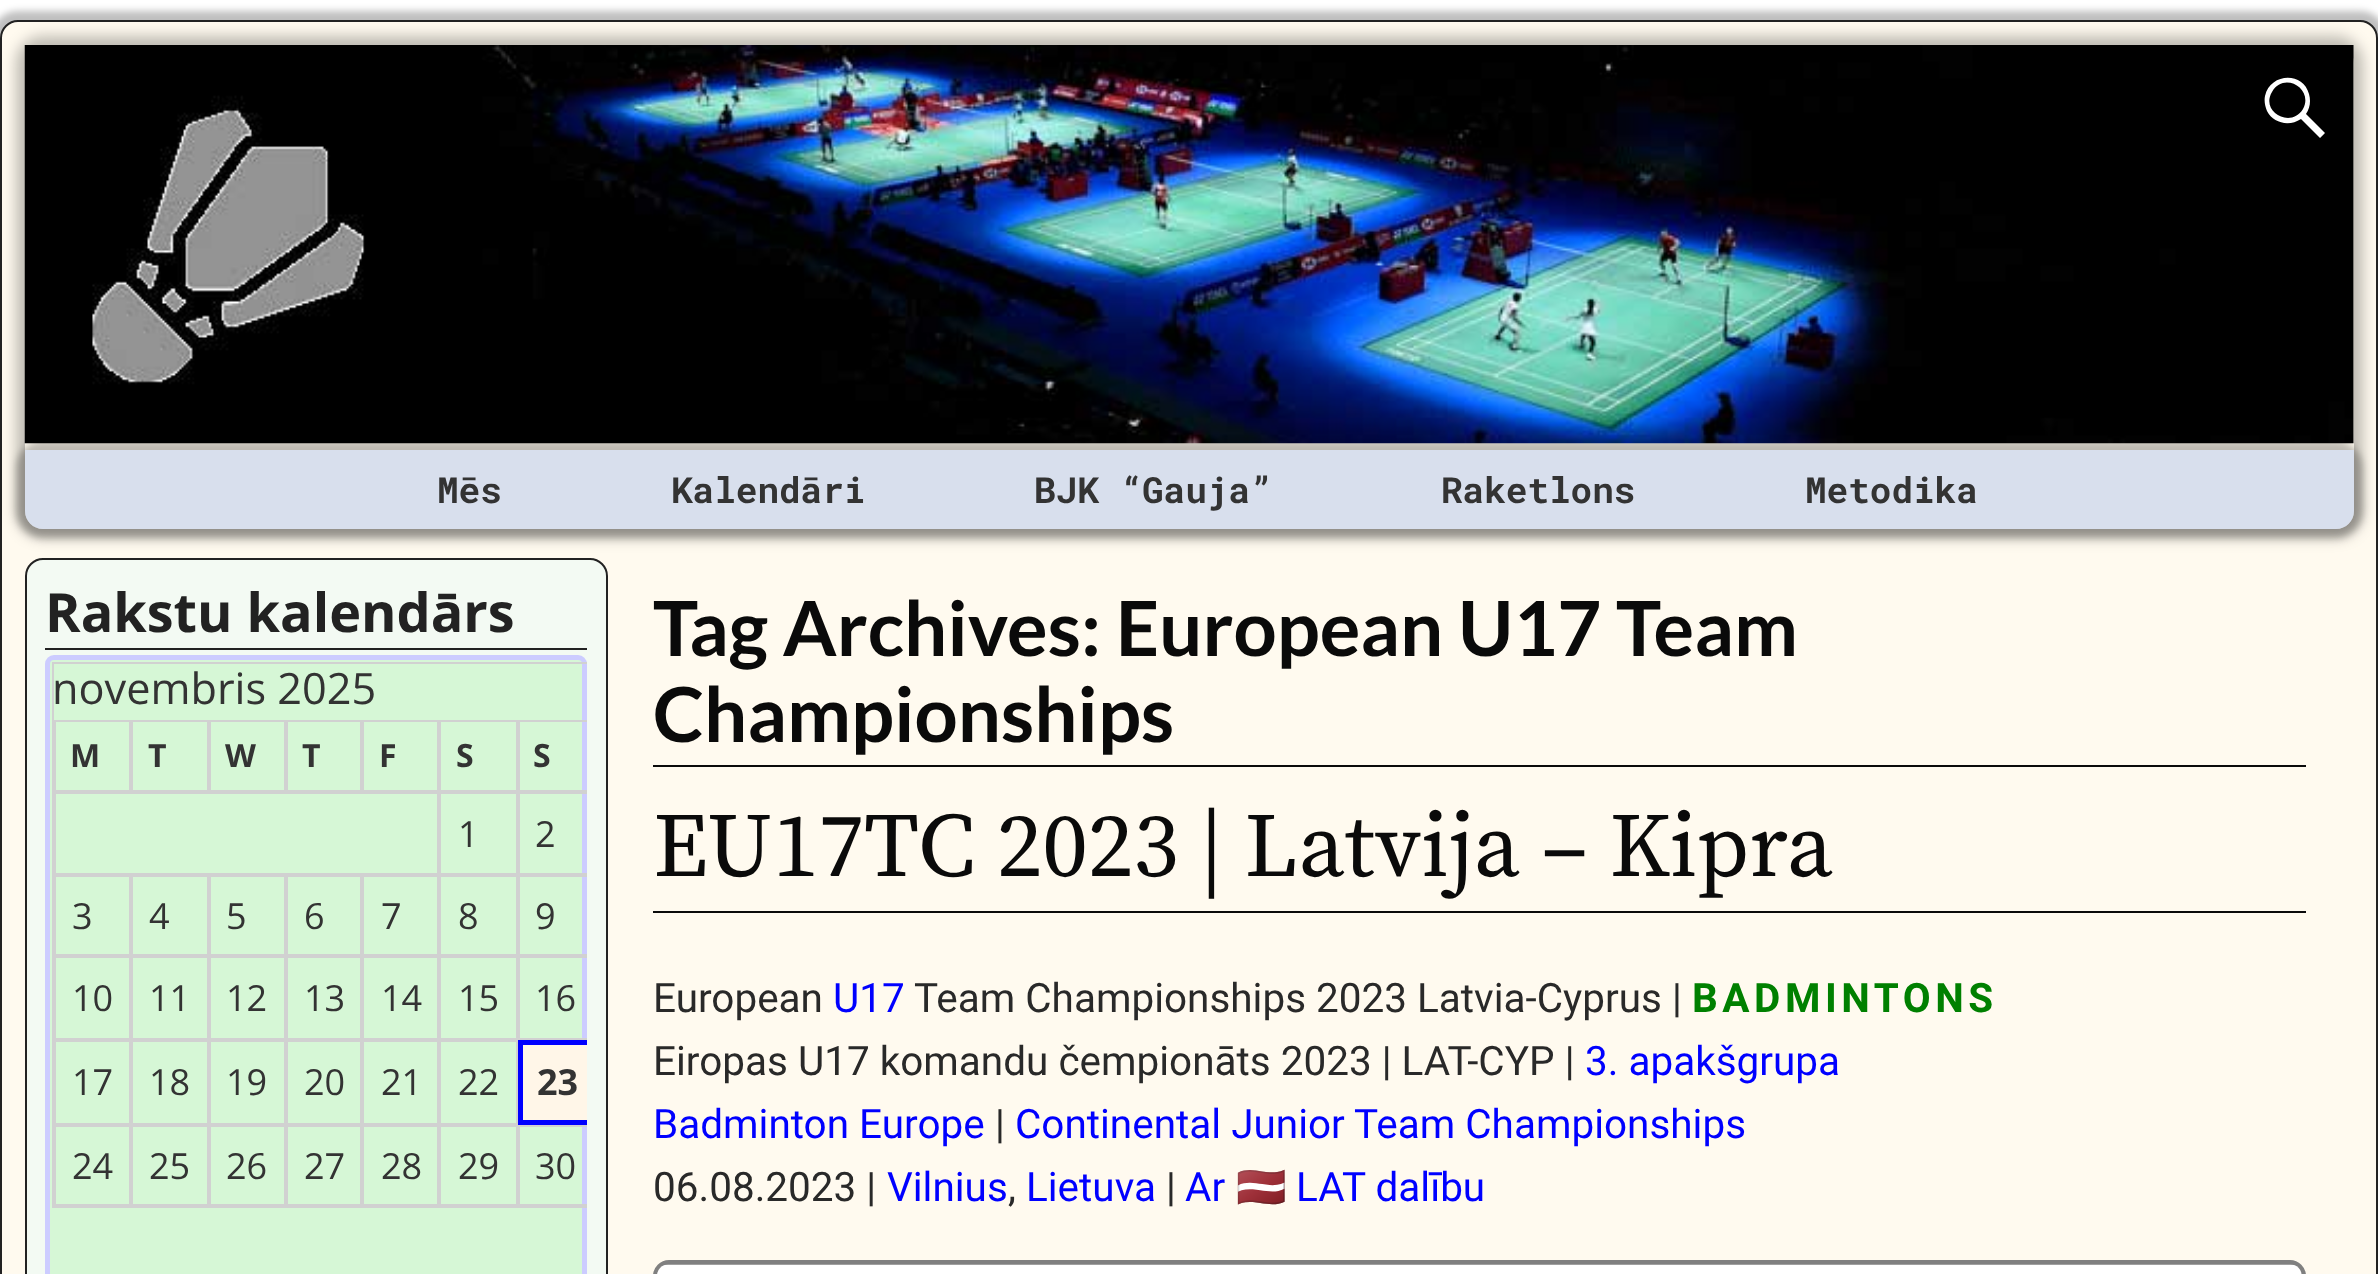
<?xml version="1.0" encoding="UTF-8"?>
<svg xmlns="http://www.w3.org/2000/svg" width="2378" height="1274">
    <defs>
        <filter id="blur1" x="-50%" y="-200%" width="200%" height="500%"><feGaussianBlur stdDeviation="3.5"/></filter>
        <clipPath id="clip1"><path d="M 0 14 H 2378 V 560 H 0 Z M 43 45 H 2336 C 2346 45 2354 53 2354 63 V 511 C 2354 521 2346 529 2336 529 H 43 C 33 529 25 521 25 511 V 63 C 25 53 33 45 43 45 Z" clip-rule="evenodd"/></clipPath>
        <filter id="blur2" x="-50%" y="-200%" width="200%" height="500%"><feGaussianBlur stdDeviation="7"/></filter>
        <clipPath id="clip2"><rect x="45" y="578" width="542" height="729"/></clipPath>
    </defs>
    <rect width="100%" height="100%" fill="#FFFFFF"/>
    <rect x="-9" y="11" width="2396" height="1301" rx="27" fill="#000000" fill-opacity="0.25" filter="url(#blur1)"/>
    <rect x="1" y="21" width="2376" height="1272" rx="17" fill="#FFFAEF" stroke="#222222" stroke-width="2"/>
    <g clip-path="url(#clip1)">
        <rect x="16" y="36" width="2347" height="502" rx="27" fill="#000000" fill-opacity="0.25" filter="url(#blur2)"/>
    </g>
    <image x="24" y="45" width="2330" height="399" href="img_01.png"/>
    <path d="M 2325 133 L 2320 138 L 2301 119 C 2289 127 2273 123 2267 111 C 2265 106 2264 101 2265 96 C 2270 73 2303 71 2309 94 C 2311 101 2310 108 2306 114 Z M 2272 92 C 2260 112 2291 129 2303 109 C 2314 89 2284 71 2272 92 Z" fill="#FFFFFF"/>
    <rect x="16" y="441" width="2347" height="97" rx="27" fill="#000000" fill-opacity="0.25" filter="url(#blur1)"/>
    <path d="M 25 450 H 2354 V 511 C 2354 521 2346 529 2336 529 H 43 C 33 529 25 521 25 511 Z" fill="#D8DFED"/>
    <text x="437" y="503" font-family="Roboto Mono" font-size="36" font-weight="700" fill="#333333">Mēs</text>
    <text x="671" y="503" font-family="Roboto Mono" font-size="36" font-weight="700" fill="#333333">Kalendāri</text>
    <text x="1034" y="503" font-family="Roboto Mono" font-size="36" font-weight="700" fill="#333333">BJK “Gauja”</text>
    <text x="1441" y="503" font-family="Roboto Mono" font-size="36" font-weight="700" fill="#333333">Raketlons</text>
    <text x="1805" y="503" font-family="Roboto Mono" font-size="36" font-weight="700" fill="#333333">Metodika</text>
    <rect x="26" y="559" width="581" height="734" rx="17" fill="#F3FAF3" stroke="#222222" stroke-width="2"/>
    <rect x="45" y="648" width="542" height="2" fill="#222222"/>
    <text x="45" y="632" font-family="Open Sans" font-size="54" font-weight="700" fill="#222222">Rakstu kalendārs</text>
    <rect x="47.5" y="657.5" width="537" height="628" rx="6.5" fill="#D6F7D6" stroke="#CCCCFF" stroke-width="5"/>
    <g clip-path="url(#clip2)">
        <rect x="53" y="663" width="547" height="544" fill="none" stroke="#D1D1D1" stroke-width="2"/>
    </g>
    <text x="52" y="704" font-family="Open Sans" font-size="43.25" fill="#333333">novembris 2025</text>
    <rect x="55" y="721" width="75" height="70" fill="none" stroke="#D1D1D1" stroke-width="2"/>
    <text x="70" y="767" font-family="Open Sans" font-size="32" font-weight="700" fill="#333333">M</text>
    <rect x="132" y="721" width="76" height="70" fill="none" stroke="#D1D1D1" stroke-width="2"/>
    <text x="148" y="767" font-family="Open Sans" font-size="32" font-weight="700" fill="#333333">T</text>
    <rect x="210" y="721" width="75" height="70" fill="none" stroke="#D1D1D1" stroke-width="2"/>
    <text x="225" y="767" font-family="Open Sans" font-size="32" font-weight="700" fill="#333333">W</text>
    <rect x="287" y="721" width="74" height="70" fill="none" stroke="#D1D1D1" stroke-width="2"/>
    <text x="302" y="767" font-family="Open Sans" font-size="32" font-weight="700" fill="#333333">T</text>
    <rect x="363" y="721" width="75" height="70" fill="none" stroke="#D1D1D1" stroke-width="2"/>
    <text x="379" y="767" font-family="Open Sans" font-size="32" font-weight="700" fill="#333333">F</text>
    <rect x="440" y="721" width="77" height="70" fill="none" stroke="#D1D1D1" stroke-width="2"/>
    <text x="456" y="767" font-family="Open Sans" font-size="32" font-weight="700" fill="#333333">S</text>
    <g clip-path="url(#clip2)">
        <rect x="519" y="721" width="79" height="70" fill="none" stroke="#D1D1D1" stroke-width="2"/>
    </g>
    <text x="533" y="767" font-family="Open Sans" font-size="32" font-weight="700" fill="#333333">S</text>
    <rect x="55" y="793" width="383" height="81" fill="none" stroke="#D1D1D1" stroke-width="2"/>
    <rect x="440" y="793" width="77" height="81" fill="none" stroke="#D1D1D1" stroke-width="2"/>
    <text x="458" y="847" font-family="Open Sans" font-size="36" fill="#333333">1</text>
    <g clip-path="url(#clip2)">
        <rect x="519" y="793" width="79" height="81" fill="none" stroke="#D1D1D1" stroke-width="2"/>
    </g>
    <text x="535" y="847" font-family="Open Sans" font-size="36" fill="#333333">2</text>
    <rect x="55" y="876" width="75" height="79" fill="none" stroke="#D1D1D1" stroke-width="2"/>
    <text x="72" y="929" font-family="Open Sans" font-size="36" fill="#333333">3</text>
    <rect x="132" y="876" width="76" height="79" fill="none" stroke="#D1D1D1" stroke-width="2"/>
    <text x="149" y="929" font-family="Open Sans" font-size="36" fill="#333333">4</text>
    <rect x="210" y="876" width="75" height="79" fill="none" stroke="#D1D1D1" stroke-width="2"/>
    <text x="226" y="929" font-family="Open Sans" font-size="36" fill="#333333">5</text>
    <rect x="287" y="876" width="74" height="79" fill="none" stroke="#D1D1D1" stroke-width="2"/>
    <text x="304" y="929" font-family="Open Sans" font-size="36" fill="#333333">6</text>
    <rect x="363" y="876" width="75" height="79" fill="none" stroke="#D1D1D1" stroke-width="2"/>
    <text x="381" y="929" font-family="Open Sans" font-size="36" fill="#333333">7</text>
    <rect x="440" y="876" width="77" height="79" fill="none" stroke="#D1D1D1" stroke-width="2"/>
    <text x="458" y="929" font-family="Open Sans" font-size="36" fill="#333333">8</text>
    <g clip-path="url(#clip2)">
        <rect x="519" y="876" width="79" height="79" fill="none" stroke="#D1D1D1" stroke-width="2"/>
    </g>
    <text x="535" y="929" font-family="Open Sans" font-size="36" fill="#333333">9</text>
    <rect x="55" y="957" width="75" height="82" fill="none" stroke="#D1D1D1" stroke-width="2"/>
    <text x="72" y="1011" font-family="Open Sans" font-size="36" fill="#333333">10</text>
    <rect x="132" y="957" width="76" height="82" fill="none" stroke="#D1D1D1" stroke-width="2"/>
    <text x="149" y="1011" font-family="Open Sans" font-size="36" fill="#333333">11</text>
    <rect x="210" y="957" width="75" height="82" fill="none" stroke="#D1D1D1" stroke-width="2"/>
    <text x="226" y="1011" font-family="Open Sans" font-size="36" fill="#333333">12</text>
    <rect x="287" y="957" width="74" height="82" fill="none" stroke="#D1D1D1" stroke-width="2"/>
    <text x="304" y="1011" font-family="Open Sans" font-size="36" fill="#333333">13</text>
    <rect x="363" y="957" width="75" height="82" fill="none" stroke="#D1D1D1" stroke-width="2"/>
    <text x="381" y="1011" font-family="Open Sans" font-size="36" fill="#333333">14</text>
    <rect x="440" y="957" width="77" height="82" fill="none" stroke="#D1D1D1" stroke-width="2"/>
    <text x="458" y="1011" font-family="Open Sans" font-size="36" fill="#333333">15</text>
    <g clip-path="url(#clip2)">
        <rect x="519" y="957" width="79" height="82" fill="none" stroke="#D1D1D1" stroke-width="2"/>
    </g>
    <text x="535" y="1011" font-family="Open Sans" font-size="36" fill="#333333">16</text>
    <rect x="55" y="1041" width="75" height="83" fill="none" stroke="#D1D1D1" stroke-width="2"/>
    <text x="72" y="1095" font-family="Open Sans" font-size="36" fill="#333333">17</text>
    <rect x="132" y="1041" width="76" height="83" fill="none" stroke="#D1D1D1" stroke-width="2"/>
    <text x="149" y="1095" font-family="Open Sans" font-size="36" fill="#333333">18</text>
    <rect x="210" y="1041" width="75" height="83" fill="none" stroke="#D1D1D1" stroke-width="2"/>
    <text x="226" y="1095" font-family="Open Sans" font-size="36" fill="#333333">19</text>
    <rect x="287" y="1041" width="74" height="83" fill="none" stroke="#D1D1D1" stroke-width="2"/>
    <text x="304" y="1095" font-family="Open Sans" font-size="36" fill="#333333">20</text>
    <rect x="363" y="1041" width="75" height="83" fill="none" stroke="#D1D1D1" stroke-width="2"/>
    <text x="381" y="1095" font-family="Open Sans" font-size="36" fill="#333333">21</text>
    <rect x="440" y="1041" width="77" height="83" fill="none" stroke="#D1D1D1" stroke-width="2"/>
    <text x="458" y="1095" font-family="Open Sans" font-size="36" fill="#333333">22</text>
    <rect x="523" y="1045" width="64" height="75" fill="#FFF6E8"/>
    <g clip-path="url(#clip2)">
        <rect x="520.5" y="1042.5" width="76" height="80" fill="none" stroke="#0000FF" stroke-width="5"/>
    </g>
    <text x="537" y="1095" font-family="Open Sans" font-size="36" font-weight="700" fill="#333333">23</text>
    <rect x="55" y="1126" width="75" height="79" fill="none" stroke="#D1D1D1" stroke-width="2"/>
    <text x="72" y="1179" font-family="Open Sans" font-size="36" fill="#333333">24</text>
    <rect x="132" y="1126" width="76" height="79" fill="none" stroke="#D1D1D1" stroke-width="2"/>
    <text x="149" y="1179" font-family="Open Sans" font-size="36" fill="#333333">25</text>
    <rect x="210" y="1126" width="75" height="79" fill="none" stroke="#D1D1D1" stroke-width="2"/>
    <text x="226" y="1179" font-family="Open Sans" font-size="36" fill="#333333">26</text>
    <rect x="287" y="1126" width="74" height="79" fill="none" stroke="#D1D1D1" stroke-width="2"/>
    <text x="304" y="1179" font-family="Open Sans" font-size="36" fill="#333333">27</text>
    <rect x="363" y="1126" width="75" height="79" fill="none" stroke="#D1D1D1" stroke-width="2"/>
    <text x="381" y="1179" font-family="Open Sans" font-size="36" fill="#333333">28</text>
    <rect x="440" y="1126" width="77" height="79" fill="none" stroke="#D1D1D1" stroke-width="2"/>
    <text x="458" y="1179" font-family="Open Sans" font-size="36" fill="#333333">29</text>
    <g clip-path="url(#clip2)">
        <rect x="519" y="1126" width="79" height="79" fill="none" stroke="#D1D1D1" stroke-width="2"/>
    </g>
    <text x="535" y="1179" font-family="Open Sans" font-size="36" fill="#333333">30</text>
    <rect x="653" y="765" width="1653" height="2" fill="#0A0A0A"/>
    <text font-family="Lato" font-size="76" font-weight="700" fill="#0A0A0A">
        <tspan x="653" y="656">Tag Archives: European U17 Team</tspan>
        <tspan x="653" y="742">Championships</tspan>
    </text>
    <rect x="653" y="911" width="1653" height="2" fill="#0A0A0A"/>
    <text x="653" y="876" font-family="Source Serif Pro" font-size="91.1" fill="#0A0A0A">EU17TC 2023 | Latvija – Kipra</text>
    <text x="653" y="1012" font-family="Roboto" font-size="40.5" fill="#292929">European</text>
    <text x="833" y="1012" font-family="Roboto" font-size="40.5" fill="#0000FF">U17</text>
    <text x="914" y="1012" font-family="Roboto" font-size="40.5" fill="#292929">Team Championships 2023 Latvia-Cyprus |</text>
    <text x="1692" y="1012" font-family="Roboto" font-size="40.5" font-weight="700" letter-spacing="4.5" fill="#008000">BADMINTONS</text>
    <text x="653" y="1075" font-family="Roboto" font-size="40.5" fill="#292929">Eiropas U17 komandu čempionāts 2023 | LAT-CYP |</text>
    <text x="1585" y="1075" font-family="Roboto" font-size="40.5" fill="#0000FF">3. apakšgrupa</text>
    <text x="653" y="1138" font-family="Roboto" font-size="40.5" fill="#0000FF">Badminton Europe</text>
    <text x="995" y="1138" font-family="Roboto" font-size="40.5" fill="#292929">|</text>
    <text x="1015" y="1138" font-family="Roboto" font-size="40.5" fill="#0000FF">Continental Junior Team Championships</text>
    <text x="653" y="1201" font-family="Roboto" font-size="40.5" fill="#292929">06.08.2023 |</text>
    <text x="887" y="1201" font-family="Roboto" font-size="40.5" fill="#0000FF">Vilnius</text>
    <text x="1008" y="1201" font-family="Roboto" font-size="40.5" fill="#292929">,</text>
    <text x="1026" y="1201" font-family="Roboto" font-size="40.5" fill="#0000FF">Lietuva</text>
    <text x="1166" y="1201" font-family="Roboto" font-size="40.5" fill="#292929">|</text>
    <text x="1185" y="1201" font-family="Roboto" font-size="40.5" fill="#0000FF">Ar</text>
    <text x="1236" y="1201" font-family="Noto Color Emoji" font-size="40.5" fill="#0000FF">🇱🇻</text>
    <text x="1296" y="1201" font-family="Roboto" font-size="40.5" fill="#0000FF">LAT dalību</text>
    <rect x="655.5" y="1262.5" width="1648" height="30" rx="13.5" fill="none" stroke="#808080" stroke-width="5"/>
    <image x="657" y="1264" width="1645" height="10" href="img_02.png"/>
</svg>
